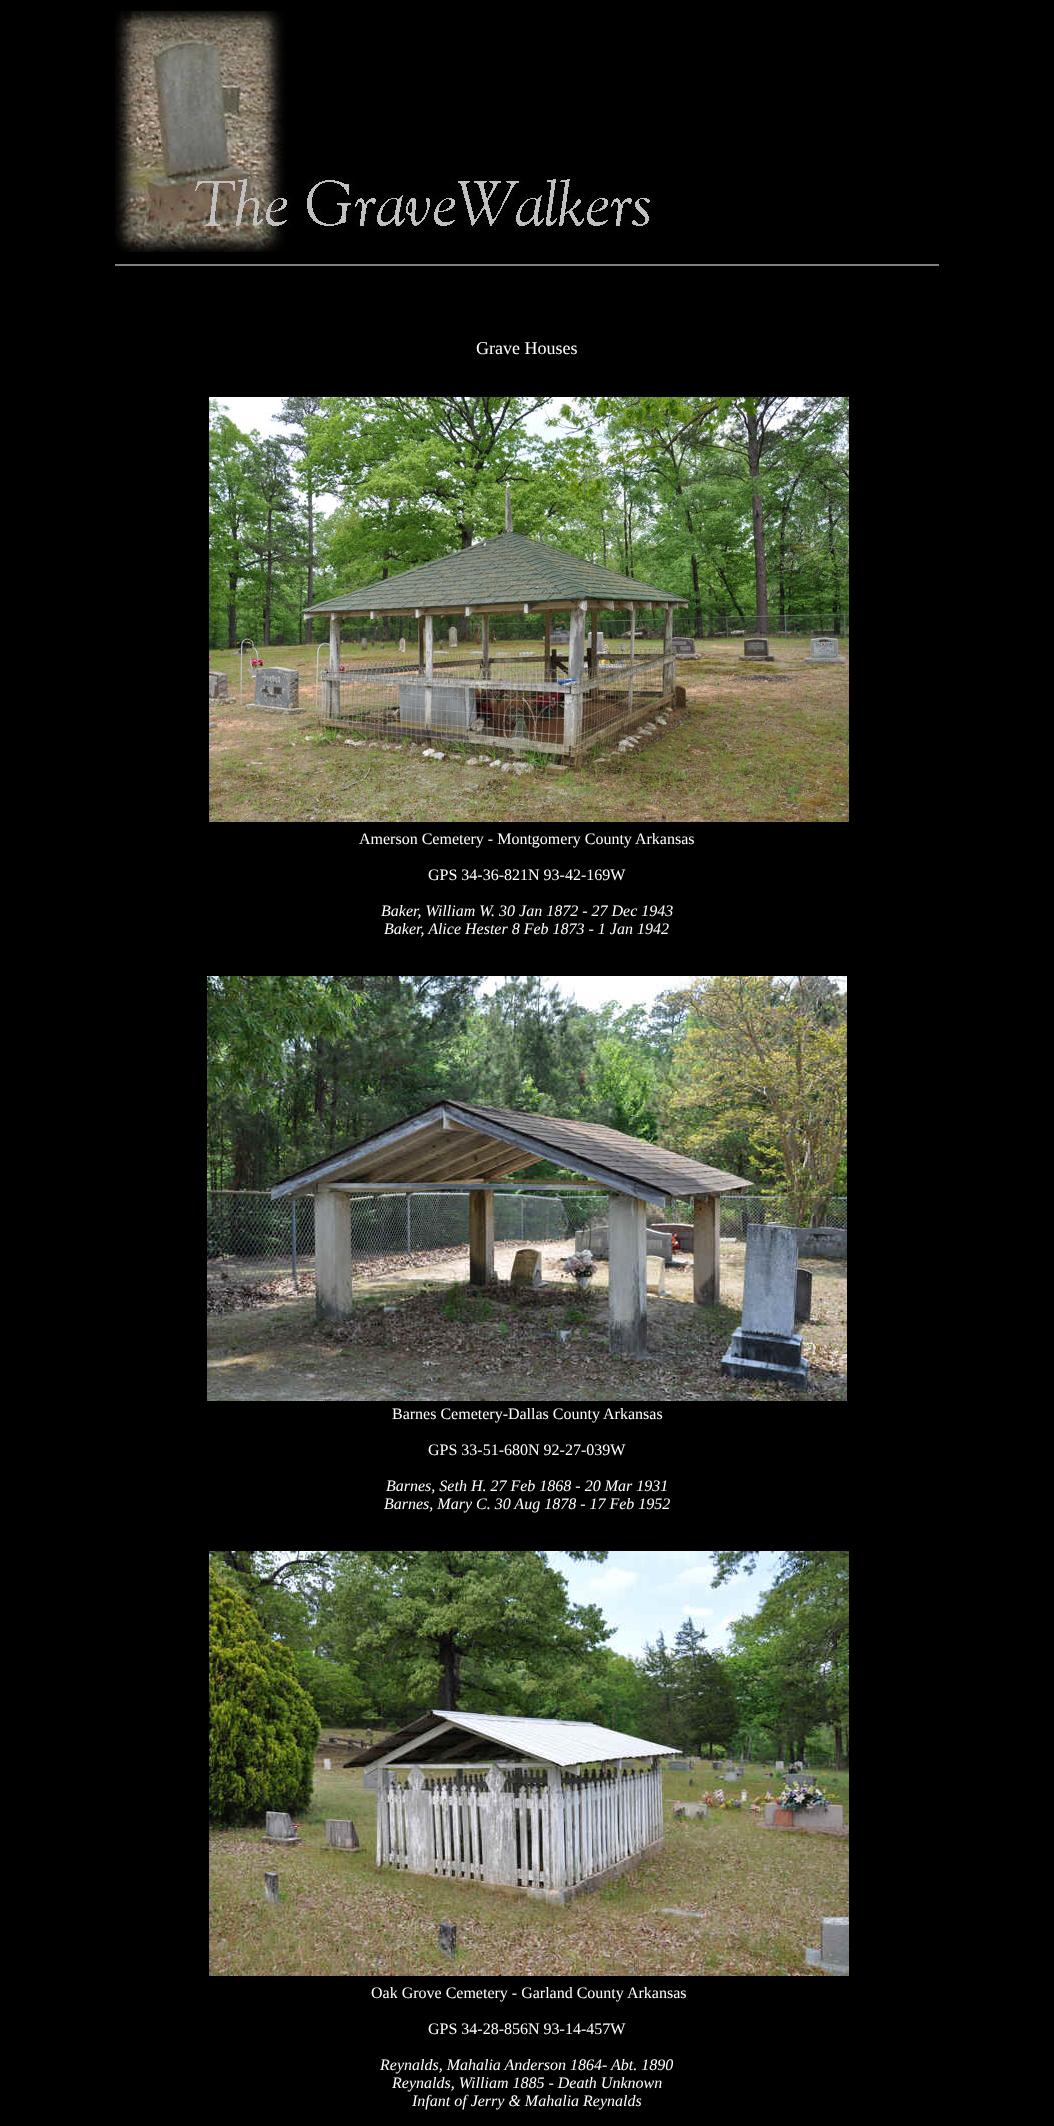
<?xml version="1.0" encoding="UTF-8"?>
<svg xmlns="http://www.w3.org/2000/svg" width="1054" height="2126">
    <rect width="100%" height="100%" fill="#000000"/>
    <image x="115" y="11" width="536" height="241" href="img_01.png"/>
    <rect x="115" y="264" width="824" height="2" fill="#808080"/>
    <text x="476" y="354" font-family="Liberation Serif" font-size="18" fill="#FFFFFF">Grave Houses</text>
    <image x="209" y="397" width="640" height="425" href="img_02.png"/>
    <text x="359" y="844" font-family="Liberation Serif" font-size="16" fill="#FFFFFF">Amerson Cemetery - Montgomery County Arkansas</text>
    <text x="428" y="880" font-family="Liberation Serif" font-size="16" fill="#FFFFFF">GPS 34-36-821N 93-42-169W</text>
    <text x="381" y="916" font-family="Liberation Serif" font-size="16" font-style="italic" fill="#FFFFFF">Baker, William W. 30 Jan 1872 - 27 Dec 1943</text>
    <text x="384" y="934" font-family="Liberation Serif" font-size="16" font-style="italic" fill="#FFFFFF">Baker, Alice Hester 8 Feb 1873 - 1 Jan 1942</text>
    <image x="207" y="976" width="640" height="425" href="img_03.png"/>
    <text x="392" y="1419" font-family="Liberation Serif" font-size="16" fill="#FFFFFF">Barnes Cemetery-Dallas County Arkansas</text>
    <text x="428" y="1455" font-family="Liberation Serif" font-size="16" fill="#FFFFFF">GPS 33-51-680N 92-27-039W</text>
    <text x="386" y="1491" font-family="Liberation Serif" font-size="16" font-style="italic" fill="#FFFFFF">Barnes, Seth H. 27 Feb 1868 - 20 Mar 1931</text>
    <text x="384" y="1509" font-family="Liberation Serif" font-size="16" font-style="italic" fill="#FFFFFF">Barnes, Mary C. 30 Aug 1878 - 17 Feb 1952</text>
    <image x="209" y="1551" width="640" height="425" href="img_04.png"/>
    <text x="371" y="1998" font-family="Liberation Serif" font-size="16" fill="#FFFFFF">Oak Grove Cemetery - Garland County Arkansas</text>
    <text x="428" y="2034" font-family="Liberation Serif" font-size="16" fill="#FFFFFF">GPS 34-28-856N 93-14-457W</text>
    <text x="380" y="2070" font-family="Liberation Serif" font-size="16" font-style="italic" fill="#FFFFFF">Reynalds, Mahalia Anderson 1864- Abt. 1890</text>
    <text x="392" y="2088" font-family="Liberation Serif" font-size="16" font-style="italic" fill="#FFFFFF">Reynalds, William 1885 - Death Unknown</text>
    <text x="412" y="2106" font-family="Liberation Serif" font-size="16" font-style="italic" fill="#FFFFFF">Infant of Jerry &amp; Mahalia Reynalds</text>
</svg>
